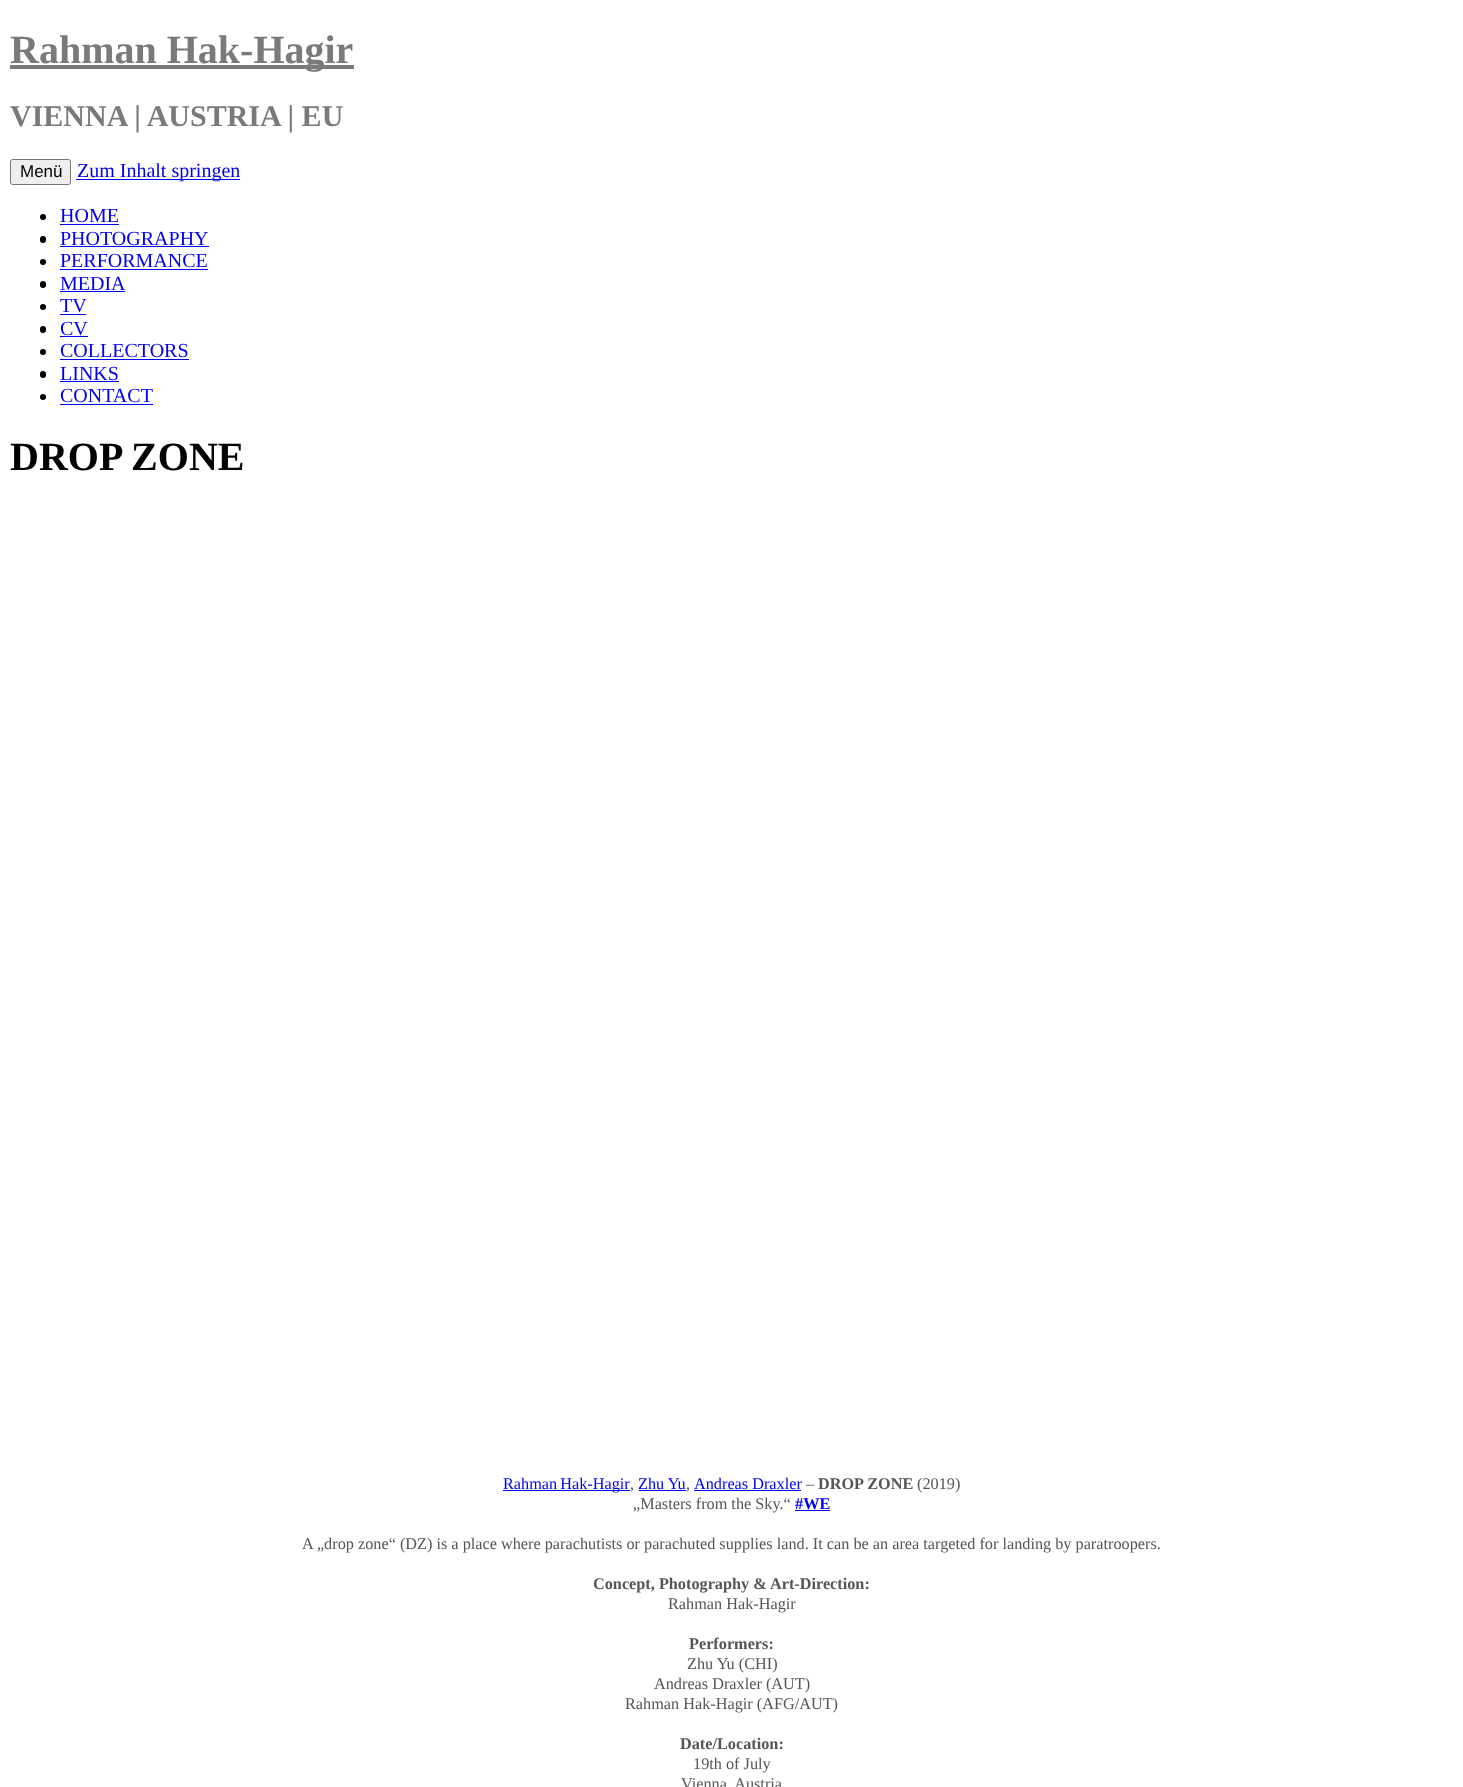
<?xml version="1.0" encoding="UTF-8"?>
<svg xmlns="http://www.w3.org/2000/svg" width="1463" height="1787">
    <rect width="100%" height="100%" fill="#FFFFFF"/>
    <rect x="10" y="65" width="344" height="4" fill="#7A7A7A"/>
    <text x="10" y="63" font-family="Liberation Serif" font-size="40" font-weight="700" fill="#7A7A7A">Rahman Hak-Hagir</text>
    <text x="10" y="126" font-family="Liberation Serif" font-size="30" font-weight="700" fill="#7A7A7A">VIENNA | AUSTRIA | EU</text>
    <rect x="10.5" y="159.5" width="60" height="25" rx="2" fill="#EFEFEF" stroke="#767676"/>
    <text x="20" y="177" font-family="Liberation Sans" font-size="17" fill="#000000">Menü</text>
    <rect x="76" y="179" width="164" height="1" fill="#0000EE"/>
    <text x="77" y="177" font-family="Liberation Serif" font-size="20" fill="#0000EE">Zum Inhalt springen</text>
    <circle cx="43" cy="217" r="3" fill="#000000"/>
    <text x="60" y="222" font-family="Liberation Serif" font-size="20" fill="#0000EE">HOME</text>
    <rect x="60" y="224" width="59" height="1" fill="#0000EE"/>
    <rect x="40" y="236" width="6" height="7" rx="3" fill="#000000"/>
    <text x="60" y="245" font-family="Liberation Serif" font-size="20" fill="#0000EE">PHOTOGRAPHY</text>
    <rect x="60" y="246" width="149" height="1" fill="#0000EE"/>
    <circle cx="43" cy="262" r="3" fill="#000000"/>
    <text x="60" y="267" font-family="Liberation Serif" font-size="20" fill="#0000EE">PERFORMANCE</text>
    <rect x="60" y="269" width="148" height="1" fill="#0000EE"/>
    <rect x="40" y="281" width="6" height="7" rx="3" fill="#000000"/>
    <text x="60" y="290" font-family="Liberation Serif" font-size="20" fill="#0000EE">MEDIA</text>
    <rect x="60" y="291" width="65" height="1" fill="#0000EE"/>
    <circle cx="43" cy="307" r="3" fill="#000000"/>
    <text x="60" y="312" font-family="Liberation Serif" font-size="20" fill="#0000EE">TV</text>
    <rect x="60" y="314" width="26" height="1" fill="#0000EE"/>
    <rect x="40" y="326" width="6" height="7" rx="3" fill="#000000"/>
    <text x="60" y="335" font-family="Liberation Serif" font-size="20" fill="#0000EE">CV</text>
    <rect x="60" y="336" width="28" height="1" fill="#0000EE"/>
    <circle cx="43" cy="352" r="3" fill="#000000"/>
    <text x="60" y="357" font-family="Liberation Serif" font-size="20" fill="#0000EE">COLLECTORS</text>
    <rect x="60" y="359" width="129" height="1" fill="#0000EE"/>
    <rect x="40" y="371" width="6" height="7" rx="3" fill="#000000"/>
    <text x="60" y="380" font-family="Liberation Serif" font-size="20" fill="#0000EE">LINKS</text>
    <rect x="60" y="381" width="59" height="1" fill="#0000EE"/>
    <circle cx="43" cy="397" r="3" fill="#000000"/>
    <text x="60" y="402" font-family="Liberation Serif" font-size="20" fill="#0000EE">CONTACT</text>
    <rect x="60" y="404" width="93" height="1" fill="#0000EE"/>
    <text x="10" y="470" font-family="Liberation Serif" font-size="40" font-weight="700" fill="#000000">DROP ZONE</text>
    <rect x="503" y="1490" width="127" height="1" fill="#0000EE"/>
    <text x="503" y="1489" word-spacing="-1" font-family="Liberation Serif" font-size="16.25" fill="#0000EE">Rahman Hak-Hagir</text>
    <text x="638" y="1489" font-family="Liberation Serif" font-size="16.25" fill="#0000EE">Zhu Yu</text>
    <rect x="639" y="1490" width="47" height="1" fill="#0000EE"/>
    <text x="694" y="1489" font-family="Liberation Serif" font-size="16.25" fill="#0000EE">Andreas Draxler</text>
    <rect x="694" y="1490" width="107" height="1" fill="#0000EE"/>
    <text x="806" y="1489" font-family="Liberation Serif" font-size="16.25" fill="#555555">–</text>
    <text x="818" y="1489" font-family="Liberation Serif" font-size="16.25" font-weight="700" fill="#555555">DROP ZONE</text>
    <text x="917" y="1489" font-family="Liberation Serif" font-size="16.25" fill="#555555">(2019)</text>
    <text x="630" y="1489" font-family="Liberation Serif" font-size="16.25" fill="#555555">,</text>
    <text x="686" y="1489" font-family="Liberation Serif" font-size="16.25" fill="#555555">,</text>
    <text x="633" y="1509" font-family="Liberation Serif" font-size="16.25" fill="#555555">„Masters from the Sky.“</text>
    <text x="795" y="1509" font-family="Liberation Serif" font-size="16.25" font-weight="700" fill="#0000EE">#WE</text>
    <rect x="795" y="1510" width="35" height="1" fill="#0000EE"/>
    <text x="302" y="1549" font-family="Liberation Serif" font-size="16.25" fill="#555555">A „drop zone“ (DZ) is a place where parachutists or parachuted supplies land. It can be an area targeted for landing by paratroopers.</text>
    <text x="593" y="1589" font-family="Liberation Serif" font-size="16.25" font-weight="700" fill="#555555">Concept, Photography &amp; Art-Direction:</text>
    <text x="668" y="1609" font-family="Liberation Serif" font-size="16.25" fill="#555555">Rahman Hak-Hagir</text>
    <text x="689" y="1649" font-family="Liberation Serif" font-size="16.25" font-weight="700" fill="#555555">Performers:</text>
    <text x="687" y="1669" font-family="Liberation Serif" font-size="16.25" fill="#555555">Zhu Yu (CHI)</text>
    <text x="654" y="1689" font-family="Liberation Serif" font-size="16.25" fill="#555555">Andreas Draxler (AUT)</text>
    <text x="625" y="1709" font-family="Liberation Serif" font-size="16.25" fill="#555555">Rahman Hak-Hagir (AFG/AUT)</text>
    <text x="680" y="1749" font-family="Liberation Serif" font-size="16.25" font-weight="700" fill="#555555">Date/Location:</text>
    <text x="693" y="1769" font-family="Liberation Serif" font-size="16.25" fill="#555555">19th of July</text>
    <text x="681" y="1789" font-family="Liberation Serif" font-size="16.25" fill="#555555">Vienna, Austria</text>
</svg>
